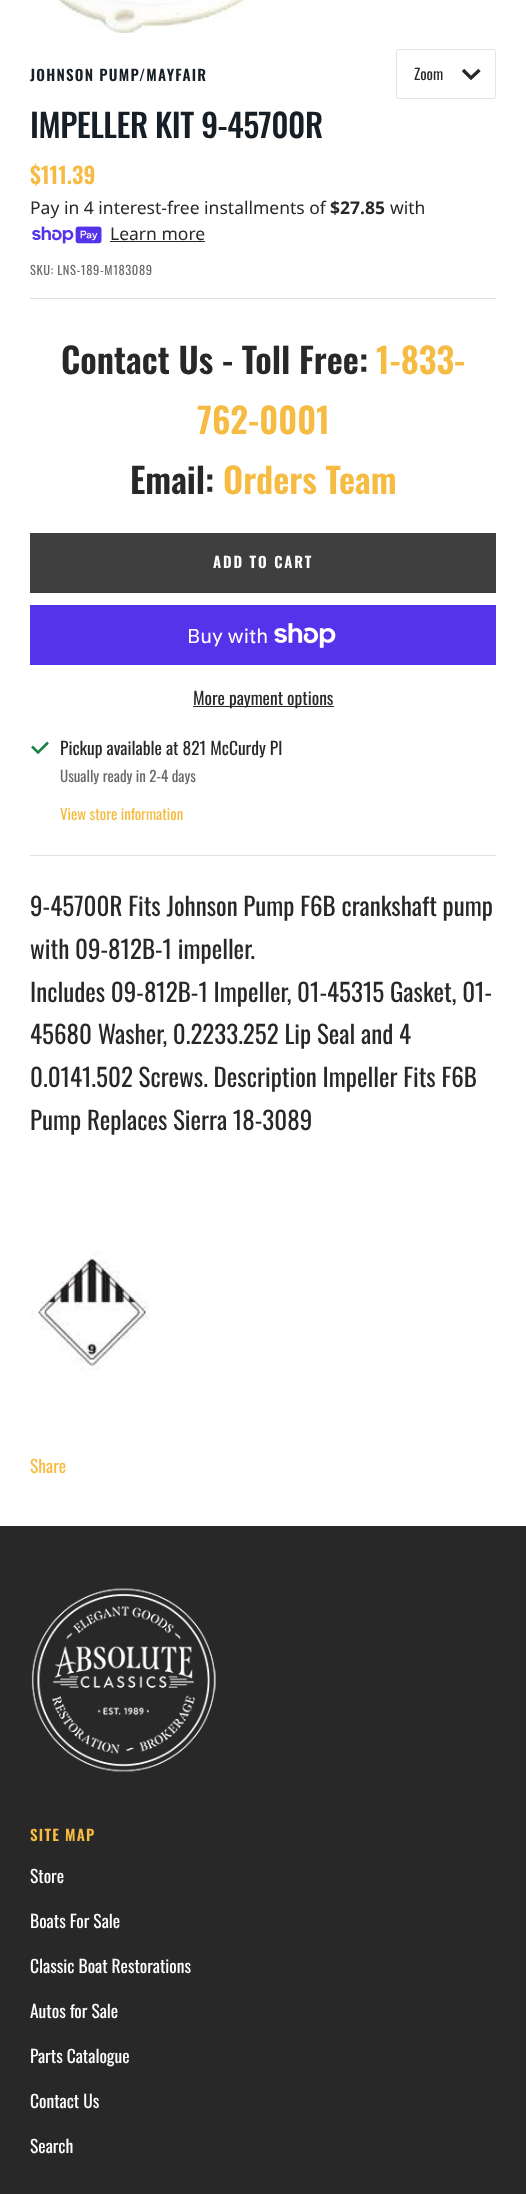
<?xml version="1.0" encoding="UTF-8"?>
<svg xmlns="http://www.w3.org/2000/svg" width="526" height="2194">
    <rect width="100%" height="100%" fill="#FFFFFF"/>
    <image x="54" y="0" width="195" height="33" href="img_01.png"/>
    <rect x="30" y="298" width="466" height="1" fill="#DFDFDF"/>
    <text x="30" y="81" font-family="Oswald" font-size="15" font-weight="600" letter-spacing="1.25" fill="#161E26">JOHNSON PUMP/MAYFAIR</text>
    <text x="30" y="138" font-family="Oswald" font-size="32.5" font-weight="500" letter-spacing="-0.5" fill="#161E26">IMPELLER KIT 9-45700R</text>
    <text x="30" y="184" font-family="Oswald" font-size="22.5" font-weight="600" fill="#F6BB42">$111.39</text>
    <text x="30" y="214" font-family="Noto Sans" font-size="17.5" fill="#282828">Pay in 4 interest-free installments of</text>
    <text x="330" y="214" font-family="Noto Sans" font-size="17.5" font-weight="700" fill="#282828">$27.85</text>
    <text x="390" y="214" font-family="Noto Sans" font-size="17.5" fill="#282828">with</text>
    <image x="32" y="226" width="70" height="18" href="img_02.png"/>
    <text x="110" y="240" font-family="Noto Sans" font-size="17.5" fill="#282828">Learn more</text>
    <rect x="110" y="241" width="95" height="1" fill="#282828"/>
    <text x="30" y="275" font-family="Oswald" font-size="12.5" letter-spacing="0.6" fill="#696969">SKU: LNS-189-M183089</text>
    <rect x="396.5" y="49.5" width="99" height="49" rx="2" fill="none" stroke="#E4E4E4"/>
    <text x="414" y="80" font-family="Oswald" font-size="15" fill="#282828">Zoom</text>
    <path d="M 463 70 L 471 78 L 479.5 70" fill="none" stroke="#282828" stroke-width="3.3"/>
    <text x="61" y="374" font-family="Oswald" font-size="35" font-weight="600" fill="#282828">Contact Us - Toll Free:</text>
    <text x="376" y="374" font-family="Oswald" font-size="35" font-weight="600" fill="#F6BB42">1-833-</text>
    <text x="197" y="434" font-family="Oswald" font-size="35" font-weight="600" fill="#F6BB42">762-0001</text>
    <text x="130" y="494" font-family="Oswald" font-size="35" font-weight="600" fill="#282828">Email:</text>
    <text x="223" y="494" font-family="Oswald" font-size="35" font-weight="600" fill="#F6BB42">Orders Team</text>
    <rect x="30" y="533" width="466" height="60" fill="#3F3F3F"/>
    <text x="213" y="568" font-family="Oswald" font-size="15" font-weight="600" letter-spacing="1.9" fill="#FFFFFF">ADD TO CART</text>
    <rect x="30" y="605" width="466" height="60" fill="#5433EB"/>
    <text x="187" y="643" font-family="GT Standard" font-size="20" fill="#FFFFFF">Buy with</text>
    <image x="274" y="623" width="62" height="25" href="img_03.png"/>
    <rect x="193" y="706" width="141" height="1" fill="#282828"/>
    <text x="193" y="705" font-family="Oswald" font-size="17.5" fill="#282828">More payment options</text>
    <path d="M 32 746.5 L 38 752.5 L 48 742.5" fill="none" stroke="#168342" stroke-width="2.5"/>
    <text x="60" y="755" font-family="Oswald" font-size="17.5" fill="#282828">Pickup available at 821 McCurdy Pl</text>
    <text x="60" y="782" font-family="Oswald" font-size="15" fill="#696969">Usually ready in 2-4 days</text>
    <text x="60" y="820" font-family="Oswald" font-size="15" fill="#F6BB42">View store information</text>
    <rect x="30" y="855" width="466" height="1" fill="#DFDFDF"/>
    <text font-family="Oswald" font-size="25" fill="#282828">
        <tspan x="30" y="916">9-45700R Fits Johnson Pump F6B crankshaft pump</tspan>
        <tspan x="30" y="959">with 09-812B-1 impeller.</tspan>
        <tspan x="30" y="1002">Includes 09-812B-1 Impeller, 01-45315 Gasket, 01-</tspan>
        <tspan x="30" y="1044">45680 Washer, 0.2233.252 Lip Seal and 4</tspan>
        <tspan x="30" y="1087">0.0141.502 Screws. Description Impeller Fits F6B</tspan>
        <tspan x="30" y="1130">Pump Replaces Sierra 18-3089</tspan>
    </text>
    <image x="30" y="1251" width="119" height="120" href="img_04.png"/>
    <text x="30" y="1473" font-family="Oswald" font-size="17.5" fill="#F6BB42">Share</text>
    <rect x="0" y="1526" width="526" height="668" fill="#282828"/>
    <image x="31" y="1588" width="185" height="184" href="img_05.png"/>
    <text x="30" y="1841" font-family="Oswald" font-size="15" font-weight="600" letter-spacing="1.25" fill="#F6BB42">SITE MAP</text>
    <text x="30" y="1883" font-family="Oswald" font-size="17.5" fill="#FFFFFF">Store</text>
    <text x="30" y="1928" font-family="Oswald" font-size="17.5" fill="#FFFFFF">Boats For Sale</text>
    <text x="30" y="1973" font-family="Oswald" font-size="17.5" fill="#FFFFFF">Classic Boat Restorations</text>
    <text x="30" y="2018" font-family="Oswald" font-size="17.5" fill="#FFFFFF">Autos for Sale</text>
    <text x="30" y="2063" font-family="Oswald" font-size="17.5" fill="#FFFFFF">Parts Catalogue</text>
    <text x="30" y="2108" font-family="Oswald" font-size="17.5" fill="#FFFFFF">Contact Us</text>
    <text x="30" y="2153" font-family="Oswald" font-size="17.5" fill="#FFFFFF">Search</text>
</svg>
